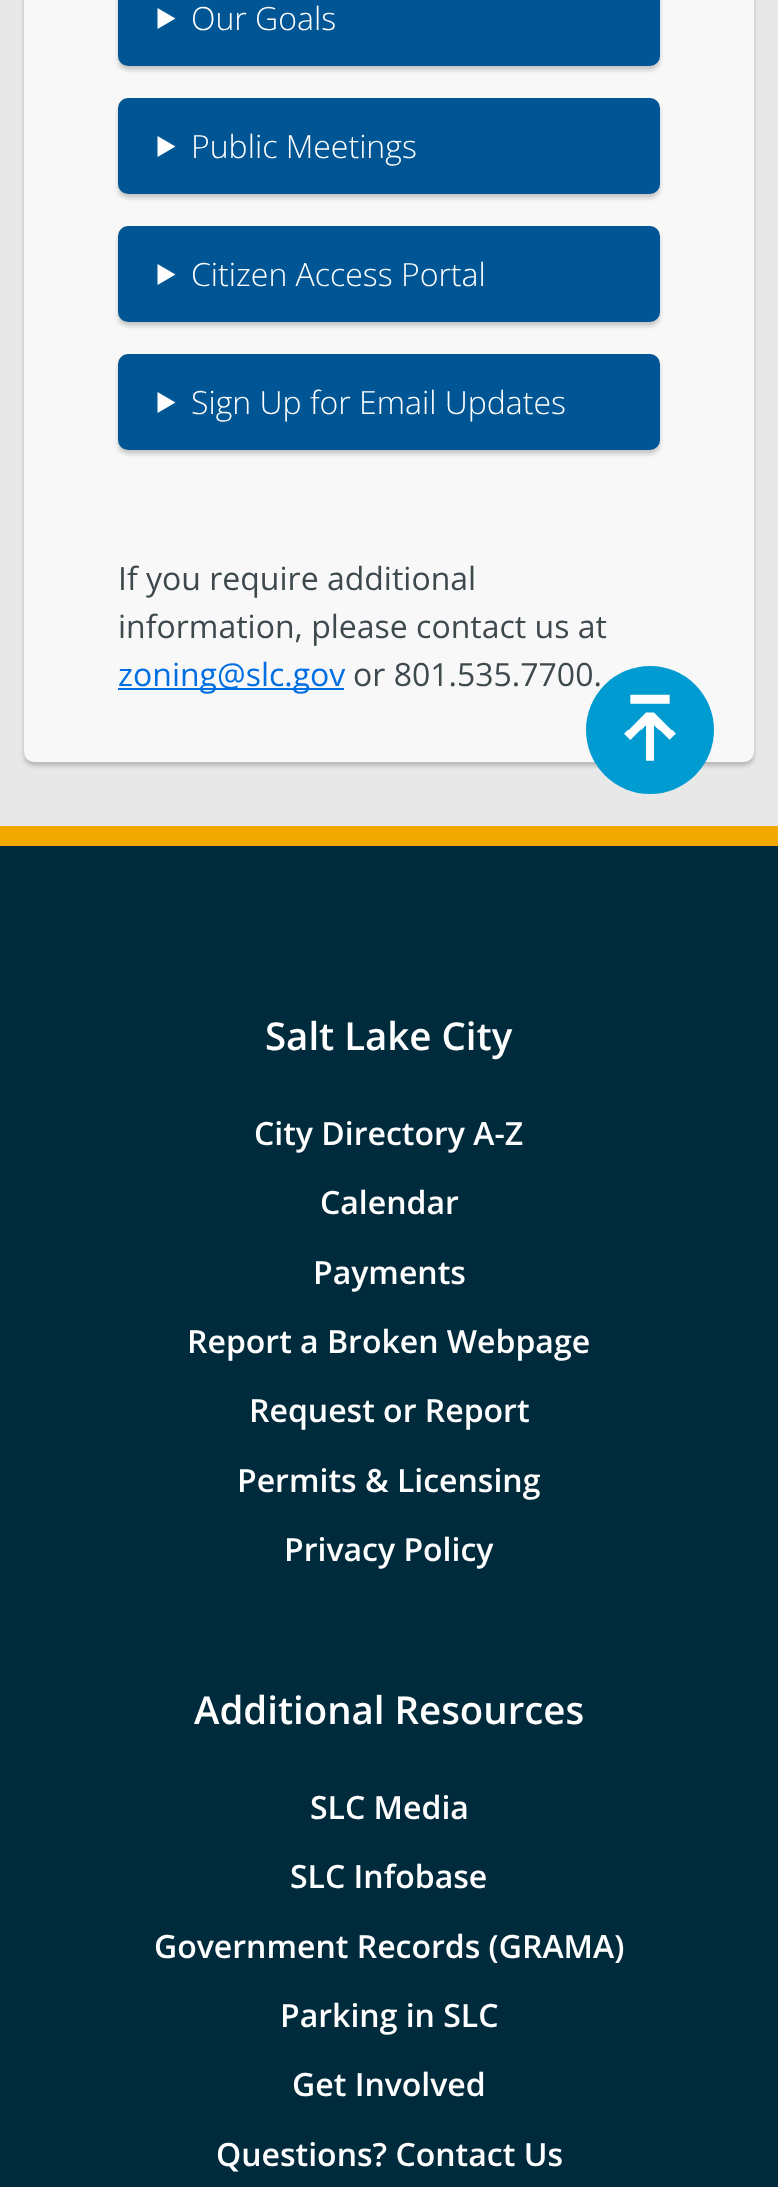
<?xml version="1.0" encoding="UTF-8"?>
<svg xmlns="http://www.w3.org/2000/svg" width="778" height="2187">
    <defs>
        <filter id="blur1" x="-50%" y="-200%" width="200%" height="500%"><feGaussianBlur stdDeviation="2"/></filter>
    </defs>
    <rect width="100%" height="100%" fill="#E8E8E8"/>
    <rect x="24" y="-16" width="730" height="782" rx="10" fill="#000000" fill-opacity="0.2" filter="url(#blur1)"/>
    <rect x="24" y="-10" width="730" height="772" rx="10" fill="#F8F8F8"/>
    <rect x="118" y="-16" width="542" height="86" rx="10" fill="#000000" fill-opacity="0.2" filter="url(#blur1)"/>
    <rect x="118" y="-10" width="542" height="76" rx="10" fill="#005695"/>
    <path d="M 157.5 8 L 175.5 18.5 L 157.5 29 Z" fill="#FFFFFF"/>
    <text x="191" y="30" font-family="Open Sans" font-size="32" font-weight="300" fill="#FFFFFF">Our Goals</text>
    <rect x="118" y="102" width="542" height="96" rx="10" fill="#000000" fill-opacity="0.2" filter="url(#blur1)"/>
    <rect x="118" y="98" width="542" height="96" rx="10" fill="#005695"/>
    <path d="M 157.5 136 L 175.5 146.5 L 157.5 157 Z" fill="#FFFFFF"/>
    <text x="191" y="158" font-family="Open Sans" font-size="32" font-weight="300" fill="#FFFFFF">Public Meetings</text>
    <rect x="118" y="230" width="542" height="96" rx="10" fill="#000000" fill-opacity="0.2" filter="url(#blur1)"/>
    <rect x="118" y="226" width="542" height="96" rx="10" fill="#005695"/>
    <path d="M 157.5 264 L 175.5 274.5 L 157.5 285 Z" fill="#FFFFFF"/>
    <text x="191" y="286" font-family="Open Sans" font-size="32" font-weight="300" fill="#FFFFFF">Citizen Access Portal</text>
    <rect x="118" y="358" width="542" height="96" rx="10" fill="#000000" fill-opacity="0.2" filter="url(#blur1)"/>
    <rect x="118" y="354" width="542" height="96" rx="10" fill="#005695"/>
    <path d="M 157.5 392 L 175.5 402.5 L 157.5 413 Z" fill="#FFFFFF"/>
    <text x="191" y="414" font-family="Open Sans" font-size="32" font-weight="300" fill="#FFFFFF">Sign Up for Email Updates</text>
    <text font-family="Open Sans" font-size="32" fill="#3D494D">
        <tspan x="118" y="590">If you require additional</tspan>
        <tspan x="118" y="638">information, please contact us at</tspan>
    </text>
    <rect x="118" y="688" width="226" height="2" fill="#016FE1"/>
    <text x="118" y="686" font-family="Open Sans" font-size="32" fill="#016FE1">zoning@slc.gov</text>
    <text x="353" y="686" font-family="Open Sans" font-size="32" fill="#3D494D">or 801.535.7700.</text>
    <rect x="0" y="846" width="778" height="1341" fill="#002B3C"/>
    <rect x="0" y="826" width="778" height="20" fill="#F2A900"/>
    <circle cx="650" cy="730" r="64" fill="#009CD1"/>
    <image x="624" y="694" width="52" height="67" href="img_01.png"/>
    <text x="265" y="1050" font-family="Open Sans" font-size="38.4" font-weight="600" fill="#FFFFFF">Salt Lake City</text>
    <text x="254" y="1145" font-family="Open Sans" font-size="32" font-weight="600" fill="#FFFFFF">City Directory A-Z</text>
    <text x="320" y="1214" font-family="Open Sans" font-size="32" font-weight="600" fill="#FFFFFF">Calendar</text>
    <text x="313" y="1284" font-family="Open Sans" font-size="32" font-weight="600" fill="#FFFFFF">Payments</text>
    <text x="187" y="1353" font-family="Open Sans" font-size="32" font-weight="600" fill="#FFFFFF">Report a Broken Webpage</text>
    <text x="249" y="1422" font-family="Open Sans" font-size="32" font-weight="600" fill="#FFFFFF">Request or Report</text>
    <text x="237" y="1492" font-family="Open Sans" font-size="32" font-weight="600" fill="#FFFFFF">Permits &amp; Licensing</text>
    <text x="284" y="1561" font-family="Open Sans" font-size="32" font-weight="600" fill="#FFFFFF">Privacy Policy</text>
    <text x="194" y="1724" font-family="Open Sans" font-size="38.4" font-weight="600" fill="#FFFFFF">Additional Resources</text>
    <text x="310" y="1819" font-family="Open Sans" font-size="32" font-weight="600" fill="#FFFFFF">SLC Media</text>
    <text x="290" y="1888" font-family="Open Sans" font-size="32" font-weight="600" fill="#FFFFFF">SLC Infobase</text>
    <text x="154" y="1958" font-family="Open Sans" font-size="32" font-weight="600" fill="#FFFFFF">Government Records (GRAMA)</text>
    <text x="280" y="2027" font-family="Open Sans" font-size="32" font-weight="600" fill="#FFFFFF">Parking in SLC</text>
    <text x="292" y="2096" font-family="Open Sans" font-size="32" font-weight="600" fill="#FFFFFF">Get Involved</text>
    <text x="216" y="2166" font-family="Open Sans" font-size="32" font-weight="600" fill="#FFFFFF">Questions? Contact Us</text>
</svg>
